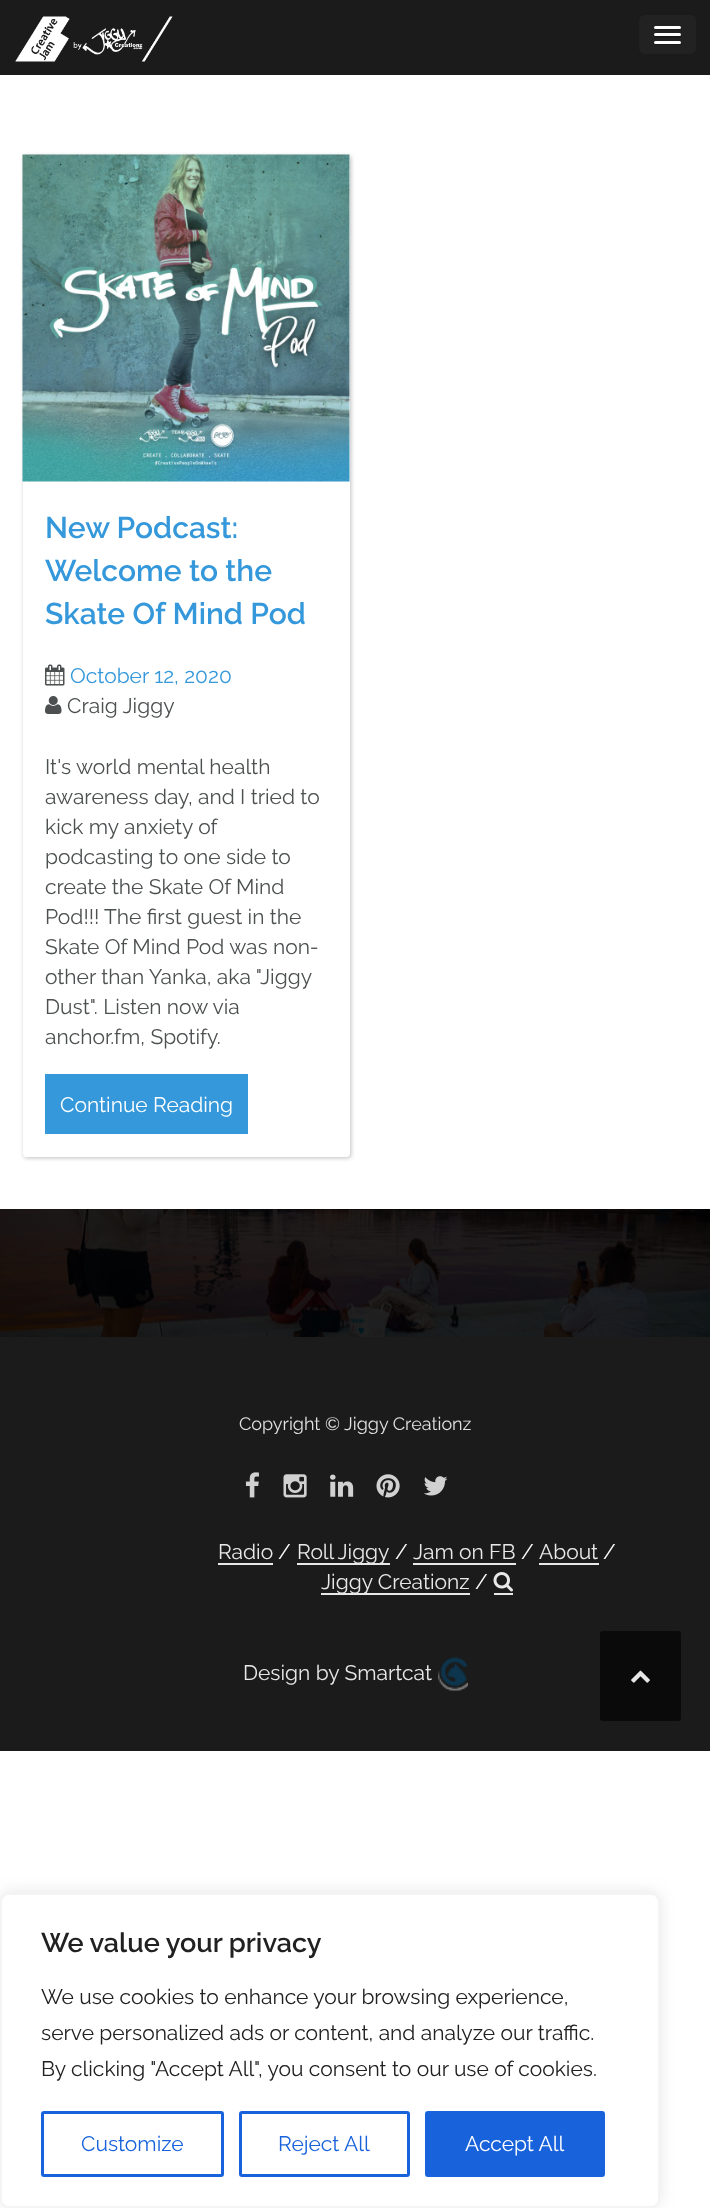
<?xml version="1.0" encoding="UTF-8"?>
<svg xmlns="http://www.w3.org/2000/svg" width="710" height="2208">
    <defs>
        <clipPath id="clip1"><path d="M 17 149 H 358 V 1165 H 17 Z M 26 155 H 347 C 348.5 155 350 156.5 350 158 V 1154 C 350 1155.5 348.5 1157 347 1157 H 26 C 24.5 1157 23 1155.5 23 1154 V 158 C 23 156.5 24.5 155 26 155 Z" clip-rule="evenodd"/></clipPath>
        <filter id="blur1" x="-50%" y="-200%" width="200%" height="500%"><feGaussianBlur stdDeviation="2"/></filter>
        <filter id="blur2" x="-50%" y="-200%" width="200%" height="500%"><feGaussianBlur stdDeviation="7.5"/></filter>
    </defs>
    <rect width="100%" height="100%" fill="#FFFFFF"/>
    <rect x="0" y="0" width="710" height="75" fill="#1B1B1B"/>
    <image x="15" y="16" width="158" height="46" href="img_01.png"/>
    <rect x="639" y="15" width="57" height="39" rx="6" fill="#222222"/>
    <path d="M 654 27.5 C 652.5 31 659.5 30 659.5 30 H 675.5 C 675.5 30 682.5 31 681 27.5 C 680.5 28 680 28.5 679.5 28.5 H 655.5 C 655 28.5 654.5 28 654 27.5 Z" fill="#1A1A1A"/>
    <rect x="654" y="26" width="27" height="3" rx="1.5" fill="#FFFFFF"/>
    <path d="M 654.5 35.5 L 654 37 C 654.5 39 659 38 659.5 38 H 675.5 C 676 38 680.5 39 681 37 L 680.5 35.5 L 679.5 36 H 655.5 Z" fill="#1A1A1A"/>
    <rect x="654" y="33" width="27" height="3" rx="1.5" fill="#FFFFFF"/>
    <path d="M 654 42.5 C 652.5 46 659.5 45 659.5 45 H 675.5 C 675.5 45 682.5 46 681 42.5 C 680.5 43 680 43.5 679.5 43.5 H 655.5 C 655 43.5 654.5 43 654 42.5 Z" fill="#1A1A1A"/>
    <rect x="654" y="41" width="27" height="3" rx="1.5" fill="#FFFFFF"/>
    <g clip-path="url(#clip1)">
        <rect x="24" y="156" width="327" height="1002" rx="3" fill="#BFBFBF" filter="url(#blur1)"/>
    </g>
    <image x="22" y="154" width="328" height="328" href="img_02.png"/>
    <text font-family="Raleway" font-size="30" font-weight="600" fill="#3498DB">
        <tspan x="45" y="538">New Podcast:</tspan>
        <tspan x="45" y="581">Welcome to the</tspan>
        <tspan x="45" y="624">Skate Of Mind Pod</tspan>
    </text>
    <image x="45" y="664" width="20" height="22" href="img_03.png"/>
    <text x="70" y="683" font-family="Raleway" font-size="21" fill="#3498DB">October 12, 2020</text>
    <image x="45" y="696" width="17" height="18" href="img_04.png"/>
    <text x="67" y="713" font-family="Raleway" font-size="21" fill="#4D5051">Craig Jiggy</text>
    <text font-family="Raleway" font-size="21" fill="#4D5051">
        <tspan x="45" y="774">It's world mental health</tspan>
        <tspan x="45" y="804">awareness day, and I tried to</tspan>
        <tspan x="45" y="834">kick my anxiety of</tspan>
        <tspan x="45" y="864">podcasting to one side to</tspan>
        <tspan x="45" y="894">create the Skate Of Mind</tspan>
        <tspan x="45" y="924">Pod!!! The first guest in the</tspan>
        <tspan x="45" y="954">Skate Of Mind Pod was non-</tspan>
        <tspan x="45" y="984">other than Yanka, aka "Jiggy</tspan>
        <tspan x="45" y="1014">Dust". Listen now via</tspan>
        <tspan x="45" y="1044">anchor.fm, Spotify.</tspan>
    </text>
    <rect x="45" y="1074" width="203" height="60" fill="#3498DB"/>
    <text x="60" y="1112" font-family="Raleway" font-size="21" fill="#FFFFFF">Continue Reading</text>
    <rect x="0" y="1337" width="710" height="414" fill="#1B1B1B"/>
    <text x="239" y="1430" font-family="Raleway" font-size="18" fill="#E1E1E1">Copyright © Jiggy Creationz</text>
    <image x="245" y="1472" width="14" height="26" href="img_05.png"/>
    <image x="283" y="1474" width="24" height="24" href="img_06.png"/>
    <image x="330" y="1474" width="24" height="23" href="img_07.png"/>
    <image x="376" y="1474" width="24" height="24" href="img_08.png"/>
    <image x="424" y="1476" width="24" height="20" href="img_09.png"/>
    <text x="218" y="1559" font-family="Raleway" font-size="21" fill="#E8E8E8">Radio</text>
    <rect x="218" y="1563" width="55" height="2" fill="#E8E8E8"/>
    <text x="278" y="1559" font-family="Raleway" font-size="21" fill="#FFFFFF">/</text>
    <rect x="297" y="1563" width="93" height="2" fill="#E8E8E8"/>
    <text x="297" y="1559" word-spacing="-1" font-family="Raleway" font-size="21" fill="#E8E8E8">Roll Jiggy</text>
    <text x="395" y="1559" font-family="Raleway" font-size="21" fill="#FFFFFF">/</text>
    <text x="413" y="1559" font-family="Raleway" font-size="21" fill="#E8E8E8">Jam on FB</text>
    <rect x="413" y="1563" width="103" height="2" fill="#E8E8E8"/>
    <text x="521" y="1559" font-family="Raleway" font-size="21" fill="#FFFFFF">/</text>
    <text x="539" y="1559" font-family="Raleway" font-size="21" fill="#E8E8E8">About</text>
    <rect x="539" y="1563" width="60" height="2" fill="#E8E8E8"/>
    <text x="603" y="1559" font-family="Raleway" font-size="21" fill="#FFFFFF">/</text>
    <rect x="321" y="1593" width="149" height="2" fill="#E8E8E8"/>
    <text x="321" y="1589" font-family="Raleway" font-size="21" fill="#E8E8E8">Jiggy Creationz</text>
    <text x="475" y="1589" font-family="Raleway" font-size="21" fill="#FFFFFF">/</text>
    <rect x="494" y="1593" width="19" height="2" fill="#E8E8E8"/>
    <image x="493" y="1572" width="20" height="20" href="img_10.png"/>
    <text x="243" y="1680" font-family="Raleway" font-size="21" fill="#E8E8E8">Design by Smartcat</text>
    <image x="438" y="1657" width="30" height="34" href="img_11.png"/>
    <rect x="600" y="1631" width="81" height="90" rx="3" fill="#0A0A0A"/>
    <image x="631" y="1670" width="19" height="13" href="img_12.png"/>
    <image x="0" y="1209" width="710" height="128" href="img_13.png"/>
    <rect x="0" y="1892" width="660" height="315" rx="9" fill="#ACABAB" fill-opacity="0.3" filter="url(#blur2)"/>
    <rect x="1" y="1894" width="658" height="313" rx="8" fill="#FFFFFF" stroke="#F4F4F4" stroke-width="2"/>
    <text x="41" y="1952" font-family="Raleway" font-size="27" font-weight="600" fill="#212121">We value your privacy</text>
    <text font-family="Raleway" font-size="21" fill="#212121">
        <tspan x="41" y="2004">We use cookies to enhance your browsing experience,</tspan>
        <tspan x="41" y="2040">serve personalized ads or content, and analyze our traffic.</tspan>
        <tspan x="41" y="2076">By clicking "Accept All", you consent to our use of cookies.</tspan>
    </text>
    <rect x="42.5" y="2112.5" width="180" height="63" rx="1.5" fill="none" stroke="#1863DC" stroke-width="3"/>
    <text x="81" y="2151" font-family="Raleway" font-size="21" fill="#1863DC">Customize</text>
    <rect x="240.5" y="2112.5" width="168" height="63" rx="1.5" fill="none" stroke="#1863DC" stroke-width="3"/>
    <text x="278" y="2151" font-family="Raleway" font-size="21" fill="#1863DC">Reject All</text>
    <rect x="426.5" y="2112.5" width="177" height="63" rx="1.5" fill="#1863DC" stroke="#1863DC" stroke-width="3"/>
    <text x="465" y="2151" font-family="Raleway" font-size="21" fill="#FFFFFF">Accept All</text>
</svg>
